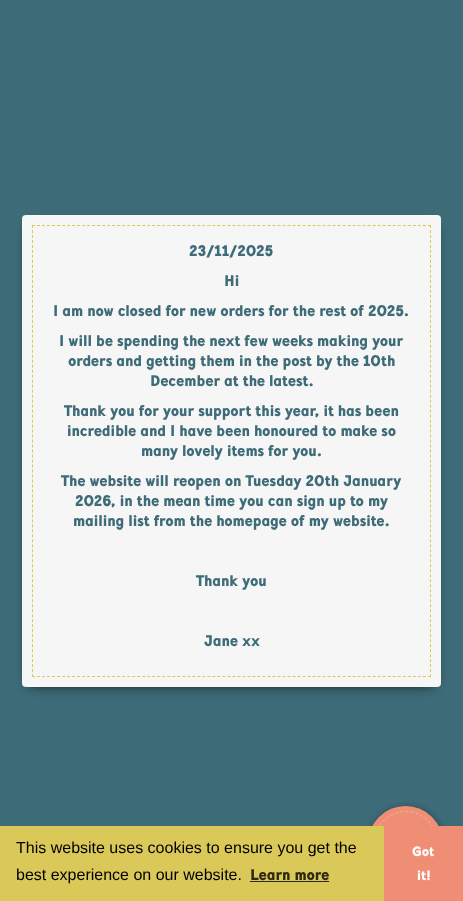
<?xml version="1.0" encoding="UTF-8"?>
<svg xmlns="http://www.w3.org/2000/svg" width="463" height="901">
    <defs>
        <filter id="blur1" x="-50%" y="-200%" width="200%" height="500%"><feGaussianBlur stdDeviation="7"/></filter>
        <filter id="blur2" x="-50%" y="-200%" width="200%" height="500%"><feGaussianBlur stdDeviation="3.5"/></filter>
    </defs>
    <rect width="100%" height="100%" fill="#3D6B77"/>
    <rect x="30" y="228" width="403" height="456" fill="#000000" filter="url(#blur1)"/>
    <rect x="22" y="215" width="419" height="472" rx="4" fill="#F6F6F6"/>
    <path d="M 32 225.5 H 431" fill="none" stroke="#DAC858" stroke-dasharray="3 2.01"/>
    <path d="M 430.5 225 V 677" fill="none" stroke="#DAC858" stroke-dasharray="3 1.99"/>
    <path d="M 32 676.5 H 431" fill="none" stroke="#DAC858" stroke-dasharray="3 2.01"/>
    <path d="M 32.5 225 V 677" fill="none" stroke="#DAC858" stroke-dasharray="3 1.99"/>
    <text x="189" y="256" font-family="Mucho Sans" font-size="16" font-weight="900" fill="#3D6B77">23/11/2025</text>
    <text x="224" y="286" font-family="Mucho Sans" font-size="16" font-weight="900" fill="#3D6B77">Hi</text>
    <text x="53" y="316" font-family="Mucho Sans" font-size="16" font-weight="900" fill="#3D6B77">I am now closed for new orders for the rest of 2025.</text>
    <text x="59" y="346" font-family="Mucho Sans" font-size="16" font-weight="900" fill="#3D6B77">I will be spending the next few weeks making your</text>
    <text x="68" y="366" font-family="Mucho Sans" font-size="16" font-weight="900" fill="#3D6B77">orders and getting them in the post by the 10th</text>
    <text x="150" y="386" font-family="Mucho Sans" font-size="16" font-weight="900" fill="#3D6B77">December at the latest.</text>
    <text x="64" y="416" font-family="Mucho Sans" font-size="16" font-weight="900" fill="#3D6B77">Thank you for your support this year, it has been</text>
    <text x="67" y="436" font-family="Mucho Sans" font-size="16" font-weight="900" fill="#3D6B77">incredible and I have been honoured to make so</text>
    <text x="141" y="456" font-family="Mucho Sans" font-size="16" font-weight="900" fill="#3D6B77">many lovely items for you.</text>
    <text x="61" y="486" font-family="Mucho Sans" font-size="16" font-weight="900" fill="#3D6B77">The website will reopen on Tuesday 20th January</text>
    <text x="75" y="506" font-family="Mucho Sans" font-size="16" font-weight="900" fill="#3D6B77">2026, in the mean time you can sign up to my</text>
    <text x="73" y="526" font-family="Mucho Sans" font-size="16" font-weight="900" fill="#3D6B77">mailing list from the homepage of my website.</text>
    <text x="196" y="586" font-family="Mucho Sans" font-size="16" font-weight="900" fill="#3D6B77">Thank you</text>
    <text x="204" y="646" font-family="Mucho Sans" font-size="16" font-weight="900" fill="#3D6B77">Jane xx</text>
    <rect x="369" y="807" width="75" height="75" rx="37.5" fill="#000000" fill-opacity="0.36" filter="url(#blur2)"/>
    <circle cx="405.5" cy="843.5" r="37.5" fill="#EF8E74"/>
    <path d="M 405.5 811.5 C 423 811.5 437.5 826 437.5 843.5 C 437.5 861 423 875.5 405.5 875.5 C 388 875.5 373.5 861 373.5 843.5 C 373.5 826 388 811.5 405.5 811.5 Z" fill="none" stroke="#E8B4A6" stroke-dasharray="3 2"/>
    <rect x="0" y="826" width="384" height="75" fill="#DAC858"/>
    <text font-family="Liberation Sans" font-size="16" fill="#000000">
        <tspan x="16" y="853">This website uses cookies to ensure you get the</tspan>
        <tspan x="16" y="880">best experience on our website.</tspan>
    </text>
    <text x="250" y="880" font-family="Mucho Sans" font-size="16" font-weight="900" fill="#2C2812">Learn more</text>
    <rect x="250" y="881" width="79" height="1" fill="#2C2812"/>
    <rect x="384" y="826" width="79" height="75" fill="#EF8E74"/>
    <text x="412" y="856" font-family="Mucho Sans" font-size="14" font-weight="900" fill="#FFFFFF">Got</text>
    <text x="417" y="880" font-family="Mucho Sans" font-size="14" font-weight="900" fill="#FFFFFF">it!</text>
</svg>
